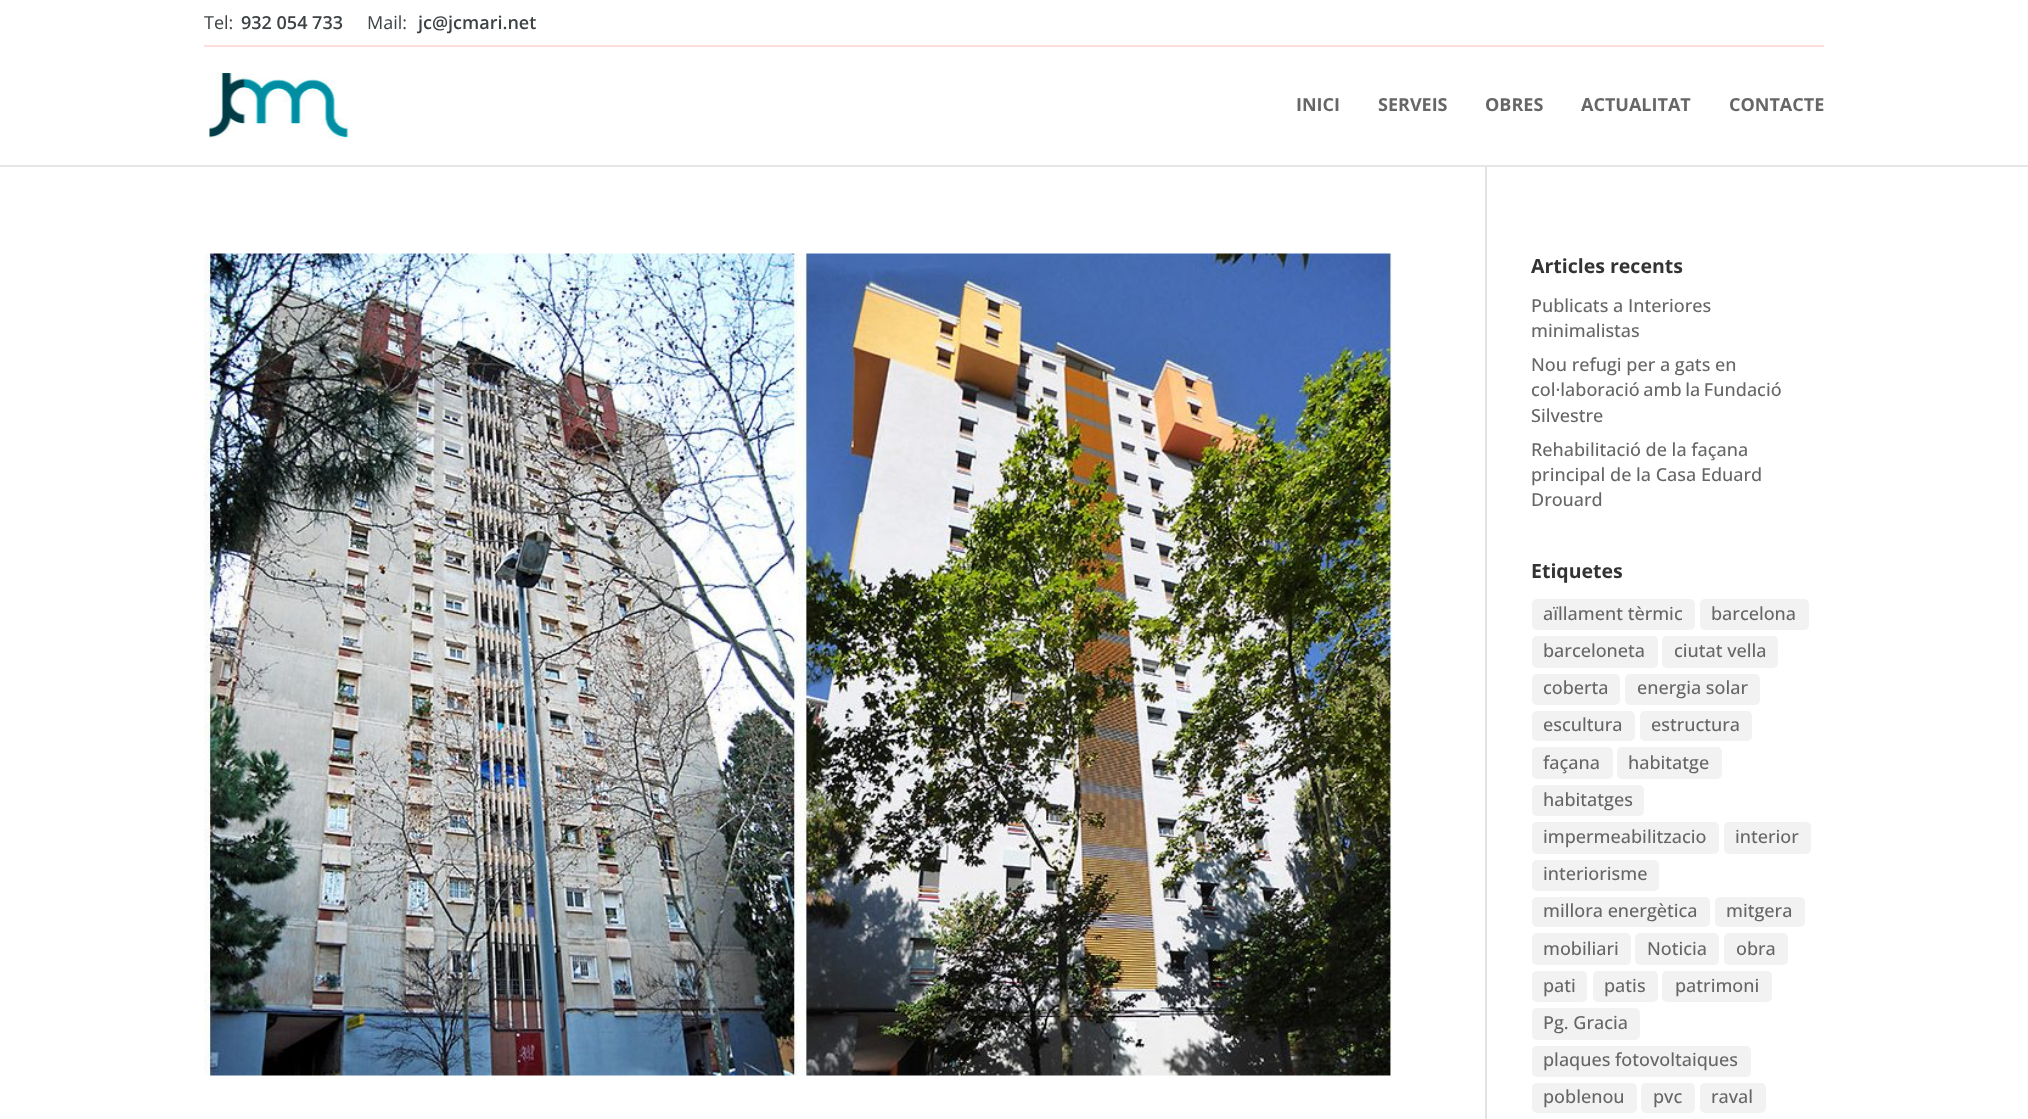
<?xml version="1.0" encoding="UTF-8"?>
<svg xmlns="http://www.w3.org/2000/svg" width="2028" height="1119">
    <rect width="100%" height="100%" fill="#FFFFFF"/>
    <rect x="204" y="45" width="1620" height="2" fill="#FFDDDD"/>
    <text x="204" y="29" font-family="Open Sans" font-size="18" fill="#3D4345">Tel:</text>
    <text x="241" y="29" font-family="Open Sans" font-size="18" font-weight="600" fill="#3D4345">932 054 733</text>
    <text x="367" y="29" font-family="Open Sans" font-size="18" fill="#3D4345">Mail:</text>
    <text x="418" y="29" font-family="Open Sans" font-size="18" font-weight="600" fill="#3D4345">jc@jcmari.net</text>
    <rect x="0" y="165" width="2028" height="2" fill="#E6E6E6"/>
    <image x="208" y="72" width="142" height="66" href="img_01.png"/>
    <text x="1296" y="111" font-family="Open Sans" font-size="18" font-weight="700" fill="#666666">INICI</text>
    <text x="1378" y="111" font-family="Open Sans" font-size="18" font-weight="700" fill="#666666">SERVEIS</text>
    <text x="1485" y="111" font-family="Open Sans" font-size="18" font-weight="700" fill="#666666">OBRES</text>
    <text x="1581" y="111" font-family="Open Sans" font-size="18" font-weight="700" fill="#666666">ACTUALITAT</text>
    <text x="1729" y="111" font-family="Open Sans" font-size="18" font-weight="700" fill="#666666">CONTACTE</text>
    <rect x="1485" y="167" width="2" height="952" fill="#E2E2E2"/>
    <image x="204" y="253" width="1189" height="823" href="img_02.png"/>
    <text x="1531" y="273" font-family="Open Sans" font-size="19.5" font-weight="700" fill="#333333">Articles recents</text>
    <text font-family="Open Sans" font-size="18" font-weight="500" fill="#666666">
        <tspan x="1531" y="312">Publicats a Interiores</tspan>
        <tspan x="1531" y="337">minimalistas</tspan>
        <tspan x="1531" y="371">Nou refugi per a gats en</tspan>
        <tspan x="1531" y="396" word-spacing="-1">col·laboració amb la Fundació</tspan>
        <tspan x="1531" y="422">Silvestre</tspan>
        <tspan x="1531" y="456">Rehabilitació de la façana</tspan>
        <tspan x="1531" y="481">principal de la Casa Eduard</tspan>
        <tspan x="1531" y="506">Drouard</tspan>
    </text>
    <text x="1531" y="578" font-family="Open Sans" font-size="19.5" font-weight="700" fill="#333333">Etiquetes</text>
    <rect x="1532" y="599" width="163" height="31" rx="5" fill="#F2F2F2"/>
    <text x="1543" y="620" font-family="Open Sans" font-size="18" font-weight="500" fill="#666666">aïllament tèrmic</text>
    <rect x="1700" y="599" width="109" height="31" rx="5" fill="#F2F2F2"/>
    <text x="1711" y="620" font-family="Open Sans" font-size="18" font-weight="500" fill="#666666">barcelona</text>
    <rect x="1532" y="636" width="126" height="32" rx="5" fill="#F2F2F2"/>
    <text x="1543" y="657" font-family="Open Sans" font-size="18" font-weight="500" fill="#666666">barceloneta</text>
    <rect x="1662" y="636" width="116" height="32" rx="5" fill="#F2F2F2"/>
    <text x="1674" y="657" font-family="Open Sans" font-size="18" font-weight="500" fill="#666666">ciutat vella</text>
    <rect x="1532" y="674" width="88" height="31" rx="5" fill="#F2F2F2"/>
    <text x="1543" y="694" font-family="Open Sans" font-size="18" font-weight="500" fill="#666666">coberta</text>
    <rect x="1625" y="674" width="135" height="31" rx="5" fill="#F2F2F2"/>
    <text x="1637" y="694" font-family="Open Sans" font-size="18" font-weight="500" fill="#666666">energia solar</text>
    <rect x="1532" y="711" width="103" height="30" rx="5" fill="#F2F2F2"/>
    <text x="1543" y="731" font-family="Open Sans" font-size="18" font-weight="500" fill="#666666">escultura</text>
    <rect x="1640" y="711" width="112" height="30" rx="5" fill="#F2F2F2"/>
    <text x="1651" y="731" font-family="Open Sans" font-size="18" font-weight="500" fill="#666666">estructura</text>
    <rect x="1532" y="747" width="81" height="32" rx="5" fill="#F2F2F2"/>
    <text x="1543" y="769" font-family="Open Sans" font-size="18" font-weight="500" fill="#666666">façana</text>
    <rect x="1617" y="747" width="105" height="32" rx="5" fill="#F2F2F2"/>
    <text x="1628" y="769" font-family="Open Sans" font-size="18" font-weight="500" fill="#666666">habitatge</text>
    <rect x="1532" y="785" width="112" height="31" rx="5" fill="#F2F2F2"/>
    <text x="1543" y="806" font-family="Open Sans" font-size="18" font-weight="500" fill="#666666">habitatges</text>
    <rect x="1532" y="822" width="187" height="32" rx="5" fill="#F2F2F2"/>
    <text x="1543" y="843" font-family="Open Sans" font-size="18" font-weight="500" fill="#666666">impermeabilitzacio</text>
    <rect x="1724" y="822" width="87" height="32" rx="5" fill="#F2F2F2"/>
    <text x="1735" y="843" font-family="Open Sans" font-size="18" font-weight="500" fill="#666666">interior</text>
    <rect x="1532" y="860" width="127" height="31" rx="5" fill="#F2F2F2"/>
    <text x="1543" y="880" font-family="Open Sans" font-size="18" font-weight="500" fill="#666666">interiorisme</text>
    <rect x="1532" y="897" width="178" height="30" rx="5" fill="#F2F2F2"/>
    <text x="1543" y="917" font-family="Open Sans" font-size="18" font-weight="500" fill="#666666">millora energètica</text>
    <rect x="1715" y="897" width="90" height="30" rx="5" fill="#F2F2F2"/>
    <text x="1726" y="917" font-family="Open Sans" font-size="18" font-weight="500" fill="#666666">mitgera</text>
    <rect x="1532" y="933" width="99" height="32" rx="5" fill="#F2F2F2"/>
    <text x="1543" y="955" font-family="Open Sans" font-size="18" font-weight="500" fill="#666666">mobiliari</text>
    <rect x="1635" y="933" width="84" height="32" rx="5" fill="#F2F2F2"/>
    <text x="1647" y="955" font-family="Open Sans" font-size="18" font-weight="500" fill="#666666">Noticia</text>
    <rect x="1724" y="933" width="64" height="32" rx="5" fill="#F2F2F2"/>
    <text x="1736" y="955" font-family="Open Sans" font-size="18" font-weight="500" fill="#666666">obra</text>
    <rect x="1532" y="971" width="55" height="31" rx="5" fill="#F2F2F2"/>
    <text x="1543" y="992" font-family="Open Sans" font-size="18" font-weight="500" fill="#666666">pati</text>
    <rect x="1593" y="971" width="65" height="31" rx="5" fill="#F2F2F2"/>
    <text x="1604" y="992" font-family="Open Sans" font-size="18" font-weight="500" fill="#666666">patis</text>
    <rect x="1662" y="971" width="110" height="31" rx="5" fill="#F2F2F2"/>
    <text x="1675" y="992" font-family="Open Sans" font-size="18" font-weight="500" fill="#666666">patrimoni</text>
    <rect x="1532" y="1008" width="108" height="32" rx="5" fill="#F2F2F2"/>
    <text x="1543" y="1029" font-family="Open Sans" font-size="18" font-weight="500" fill="#666666">Pg. Gracia</text>
    <rect x="1532" y="1046" width="219" height="31" rx="5" fill="#F2F2F2"/>
    <text x="1543" y="1066" font-family="Open Sans" font-size="18" font-weight="500" fill="#666666">plaques fotovoltaiques</text>
    <rect x="1532" y="1083" width="105" height="30" rx="5" fill="#F2F2F2"/>
    <text x="1543" y="1103" font-family="Open Sans" font-size="18" font-weight="500" fill="#666666">poblenou</text>
    <rect x="1641" y="1083" width="54" height="30" rx="5" fill="#F2F2F2"/>
    <text x="1653" y="1103" font-family="Open Sans" font-size="18" font-weight="500" fill="#666666">pvc</text>
    <rect x="1700" y="1083" width="66" height="30" rx="5" fill="#F2F2F2"/>
    <text x="1711" y="1103" font-family="Open Sans" font-size="18" font-weight="500" fill="#666666">raval</text>
</svg>
